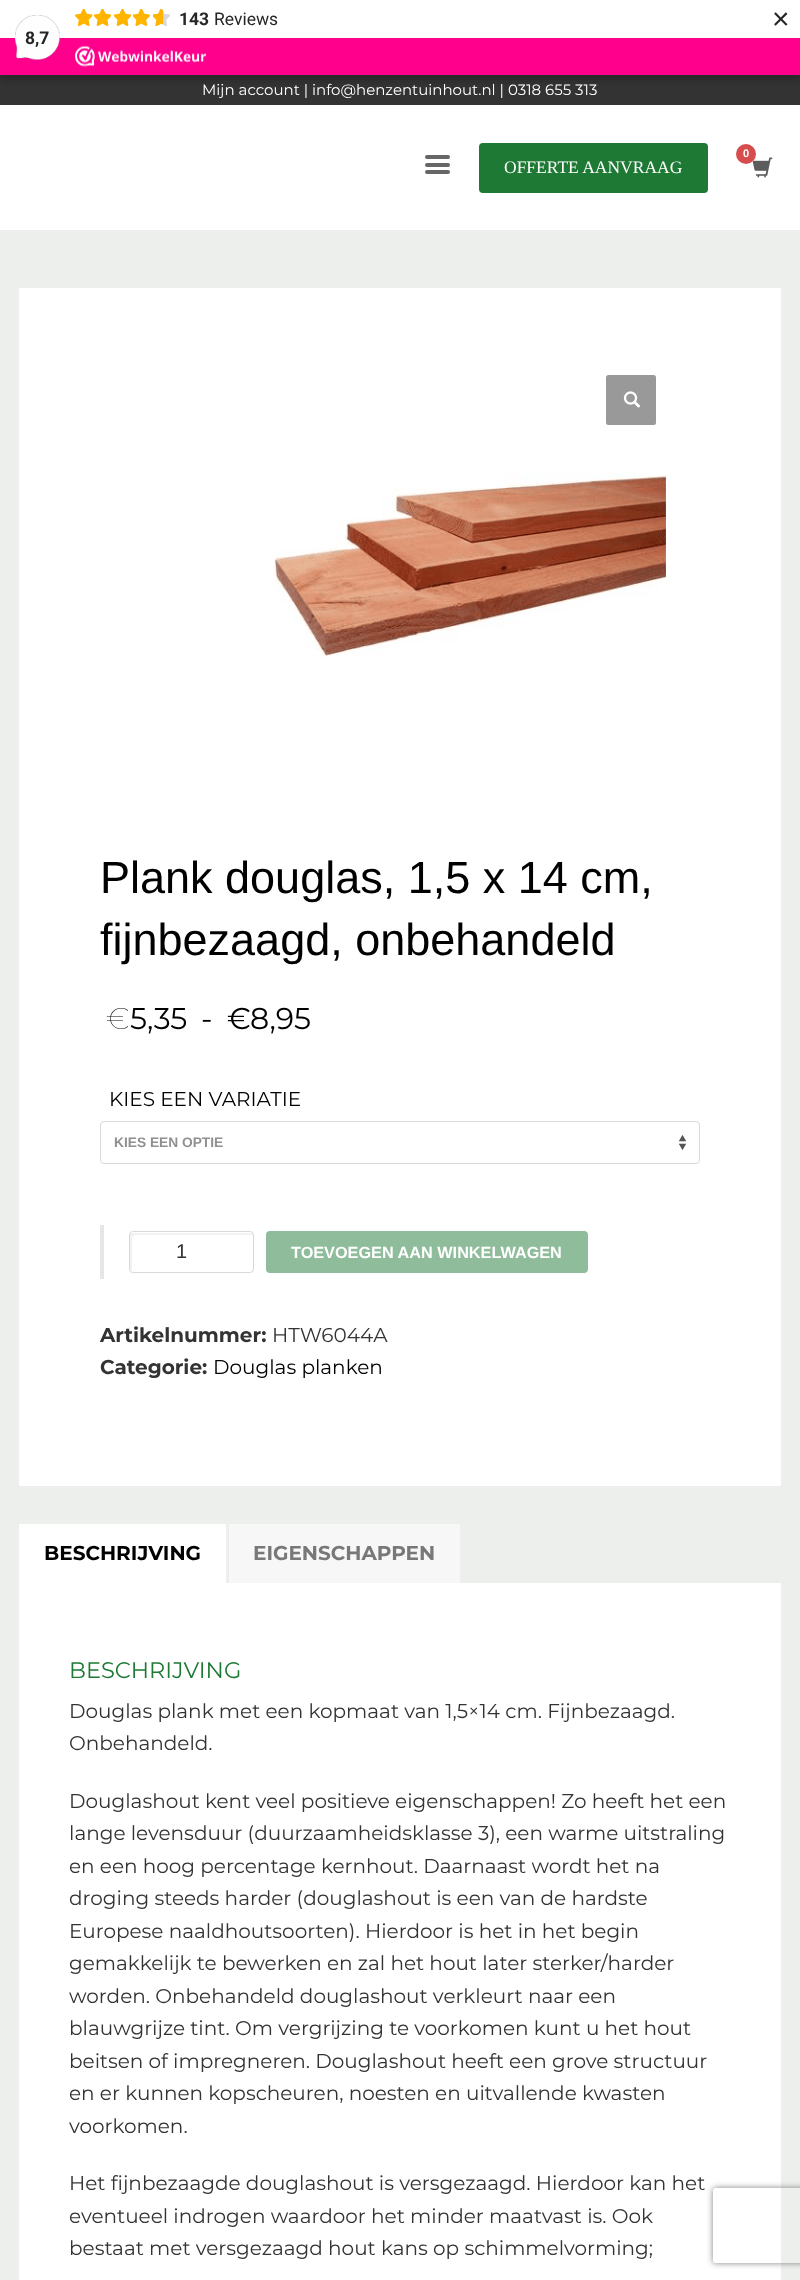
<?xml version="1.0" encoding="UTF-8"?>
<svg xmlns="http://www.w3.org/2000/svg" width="800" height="2280">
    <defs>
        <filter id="blur1" x="-50%" y="-200%" width="200%" height="500%"><feGaussianBlur stdDeviation="4"/></filter>
        <filter id="blur2" x="-50%" y="-200%" width="200%" height="500%"><feGaussianBlur stdDeviation="6"/></filter>
        <clipPath id="clip1"><path d="M 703 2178 H 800 V 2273 H 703 Z M 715.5 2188 H 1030.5 C 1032 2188 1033 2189 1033 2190.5 V 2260.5 C 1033 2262 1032 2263 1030.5 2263 H 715.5 C 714 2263 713 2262 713 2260.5 V 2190.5 C 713 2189 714 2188 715.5 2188 Z" clip-rule="evenodd"/></clipPath>
        <filter id="blur3" x="-50%" y="-200%" width="200%" height="500%"><feGaussianBlur stdDeviation="3"/></filter>
    </defs>
    <rect width="100%" height="100%" fill="#EDEFED"/>
    <rect x="0" y="75" width="800" height="30" fill="#333333"/>
    <rect x="-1" y="-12" width="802" height="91" fill="#000000" fill-opacity="0.15" filter="url(#blur1)"/>
    <rect x="0" y="3" width="800" height="75" fill="#000000" fill-opacity="0.15" filter="url(#blur2)"/>
    <rect x="0" y="0" width="800" height="38" fill="#FFFFFF"/>
    <image x="75" y="9" width="18" height="17" href="img_01.png"/>
    <image x="94" y="9" width="17" height="17" href="img_02.png"/>
    <image x="114" y="9" width="17" height="17" href="img_02.png"/>
    <image x="133" y="9" width="17" height="17" href="img_03.png"/>
    <image x="153" y="9" width="17" height="17" href="img_04.png"/>
    <image x="153" y="9" width="11" height="17" href="img_05.png"/>
    <text x="179" y="25" font-family="Roboto" font-size="17.5" font-weight="700" fill="#272626">143</text>
    <text x="214" y="25" font-family="Roboto" font-size="17.5" fill="#272626">Reviews</text>
    <text x="772" y="29" font-family="Liberation Sans" font-size="30" fill="#272626">×</text>
    <rect x="0" y="38" width="800" height="37" fill="#FE008C"/>
    <image x="15" y="15" width="45" height="45" href="img_06.png"/>
    <text x="25" y="44" font-family="Roboto" font-size="17.5" font-weight="700" fill="#272626">8,7</text>
    <image x="75" y="46" width="131" height="21" href="img_07.png"/>
    <rect x="229" y="1524" width="231" height="59" fill="#F6F7F6"/>
    <rect x="0" y="105" width="800" height="125" fill="#FFFFFF"/>
    <text x="202" y="95" font-family="Montserrat" font-size="15" fill="#FFFFFF">Mijn account | info@henzentuinhout.nl | 0318 655 313</text>
    <image x="752" y="157" width="21" height="21" href="img_08.png"/>
    <circle cx="746" cy="154" r="10" fill="#CD2122" fill-opacity="0.8"/>
    <text x="743" y="157" font-family="Liberation Sans" font-size="11" font-weight="700" fill="#FFFFFF">0</text>
    <rect x="425" y="155" width="25" height="4" rx="2" fill="#666666"/>
    <rect x="425" y="163" width="25" height="4" rx="2" fill="#666666"/>
    <rect x="425" y="170" width="25" height="4" rx="2" fill="#666666"/>
    <rect x="479" y="143" width="229" height="50" rx="4" fill="#1E7934"/>
    <text x="504" y="173" font-family="Liberation Serif" font-size="17.5" fill="#FFFFFF">OFFERTE AANVRAAG</text>
    <rect x="19" y="288" width="762" height="1198" fill="#FFFFFF"/>
    <rect x="606" y="375" width="50" height="50" rx="2.5" fill="#999999"/>
    <image x="623" y="391" width="17" height="17" href="img_09.png"/>
    <image x="274" y="473" width="392" height="184" href="img_10.png"/>
    <text font-family="Liberation Sans" font-size="45" fill="#000000">
        <tspan x="100" y="893">Plank douglas, 1,5 x 14 cm,</tspan>
        <tspan x="100" y="955">fijnbezaagd, onbehandeld</tspan>
    </text>
    <text x="106" y="1029" font-family="Montserrat" font-size="30" font-weight="100" fill="#000000">€</text>
    <text x="130" y="1029" font-family="Montserrat" font-size="30" fill="#000000">5,35</text>
    <text x="201" y="1029" font-family="Montserrat" font-size="30" fill="#000000">-</text>
    <text x="227" y="1029" font-family="Montserrat" font-size="30" fill="#000000">€</text>
    <text x="250" y="1029" font-family="Montserrat" font-size="30" fill="#000000">8,95</text>
    <text x="109" y="1106" font-family="Montserrat" font-size="20" fill="#000000">KIES EEN VARIATIE</text>
    <image x="679" y="1135" width="7" height="15" href="img_11.png"/>
    <rect x="100.5" y="1121.5" width="599" height="42" rx="3.5" fill="none" stroke="#D9D9D9"/>
    <text x="114" y="1147" font-family="Liberation Sans" font-size="13.75" font-weight="700" fill="#909090">KIES EEN OPTIE</text>
    <rect x="100" y="1225" width="4" height="54" fill="#E6E6E6"/>
    <path d="M 135 1235 H 253 C 253 1234 252 1233 250 1233 H 132 C 131 1233 130 1234 130 1236 V 1268 C 130 1270 131 1271 132 1271 V 1238 C 132 1236 134 1235 135 1235 Z" fill="#F2F2F2"/>
    <rect x="129.5" y="1231.5" width="124" height="41" rx="3.5" fill="none" stroke="#D9D9D9"/>
    <text x="176" y="1258" font-family="Liberation Sans" font-size="20" fill="#333333">1</text>
    <rect x="266" y="1231" width="322" height="42" rx="4" fill="#8FBC9A"/>
    <text x="291" y="1258" font-family="Liberation Sans" font-size="16.25" font-weight="700" fill="#FFFFFF">TOEVOEGEN AAN WINKELWAGEN</text>
    <text x="100" y="1342" font-family="'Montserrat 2'" font-size="20" font-weight="100" fill="#333333">Artikelnummer:</text>
    <text x="272" y="1342" font-family="Montserrat" font-size="20" fill="#333333">HTW6044A</text>
    <text x="100" y="1374" font-family="'Montserrat 2'" font-size="20" font-weight="100" fill="#333333">Categorie:</text>
    <text x="213" y="1374" font-family="Montserrat" font-size="20" fill="#000000">Douglas planken</text>
    <rect x="19" y="1524" width="207" height="59" fill="#FFFFFF"/>
    <text x="44" y="1560" font-family="'Montserrat 2'" font-size="20" font-weight="100" fill="#000000">BESCHRIJVING</text>
    <text x="253" y="1560" font-family="'Montserrat 2'" font-size="20" font-weight="100" fill="#777877">EIGENSCHAPPEN</text>
    <rect x="19" y="1583" width="762" height="697" fill="#FFFFFF"/>
    <text x="69" y="1678" font-family="Montserrat" font-size="22.5" fill="#1E7934">BESCHRIJVING</text>
    <text font-family="Montserrat" font-size="20" fill="#333333">
        <tspan x="69" y="1718">Douglas plank met een kopmaat van 1,5×14 cm. Fijnbezaagd.</tspan>
        <tspan x="69" y="1750">Onbehandeld.</tspan>
    </text>
    <text font-family="Montserrat" font-size="20" fill="#333333">
        <tspan x="69" y="1808">Douglashout kent veel positieve eigenschappen! Zo heeft het een</tspan>
        <tspan x="69" y="1840">lange levensduur (duurzaamheidsklasse 3), een warme uitstraling</tspan>
        <tspan x="69" y="1873">en een hoog percentage kernhout. Daarnaast wordt het na</tspan>
        <tspan x="69" y="1905">droging steeds harder (douglashout is een van de hardste</tspan>
        <tspan x="69" y="1938">Europese naaldhoutsoorten). Hierdoor is het in het begin</tspan>
        <tspan x="69" y="1970">gemakkelijk te bewerken en zal het hout later sterker/harder</tspan>
        <tspan x="69" y="2003">worden. Onbehandeld douglashout verkleurt naar een</tspan>
        <tspan x="69" y="2035">blauwgrijze tint. Om vergrijzing te voorkomen kunt u het hout</tspan>
        <tspan x="69" y="2068">beitsen of impregneren. Douglashout heeft een grove structuur</tspan>
        <tspan x="69" y="2100">en er kunnen kopscheuren, noesten en uitvallende kwasten</tspan>
        <tspan x="69" y="2133">voorkomen.</tspan>
    </text>
    <text font-family="Montserrat" font-size="20" fill="#333333">
        <tspan x="69" y="2190">Het fijnbezaagde douglashout is versgezaagd. Hierdoor kan het</tspan>
        <tspan x="69" y="2223">eventueel indrogen waardoor het minder maatvast is. Ook</tspan>
        <tspan x="69" y="2255">bestaat met versgezaagd hout kans op schimmelvorming;</tspan>
    </text>
    <g clip-path="url(#clip1)">
        <rect x="713" y="2188" width="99" height="75" rx="2.5" fill="#808080" filter="url(#blur3)"/>
    </g>
</svg>
